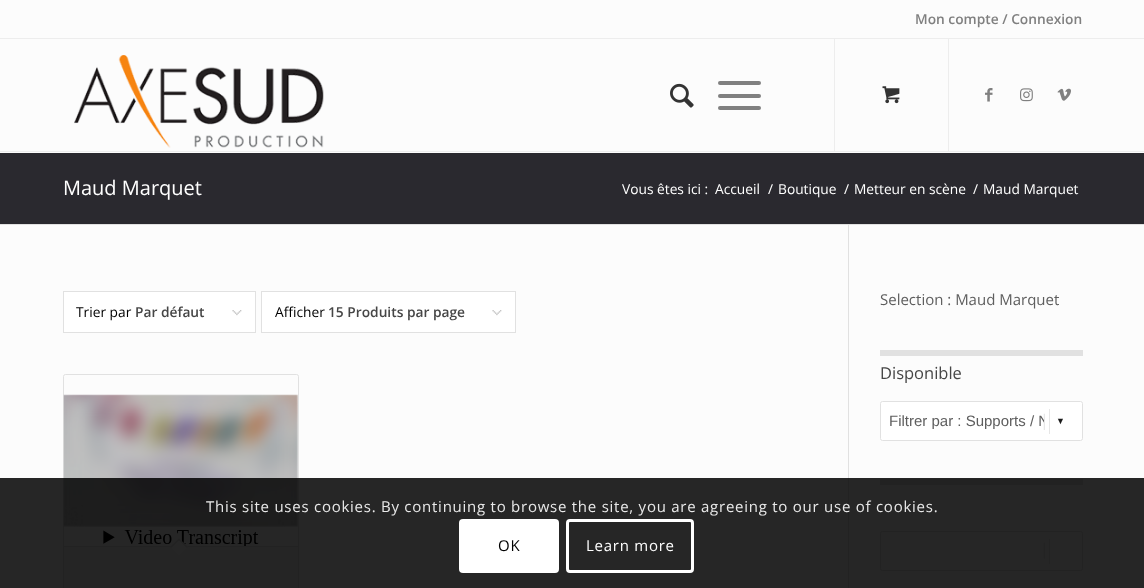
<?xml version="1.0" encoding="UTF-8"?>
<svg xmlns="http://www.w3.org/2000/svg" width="1144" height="588">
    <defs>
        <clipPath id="clip1"><rect x="889" y="413" width="155" height="17"/></clipPath>
    </defs>
    <rect width="100%" height="100%" fill="#FCFCFC"/>
    <rect x="0" y="38" width="1144" height="1" fill="#EDEDED"/>
    <text x="915" y="24" font-family="Open Sans" font-size="13.75" font-weight="600" fill="#808080">Mon compte / Connexion</text>
    <rect x="0" y="151" width="1144" height="1" fill="#EDEDED"/>
    <image x="74" y="55" width="250" height="93" href="img_01.png"/>
    <rect x="834" y="39" width="1" height="112" fill="#EDEDED"/>
    <image x="670" y="83" width="24" height="25" href="img_02.png"/>
    <rect x="718" y="94" width="43" height="4" rx="2" fill="#808080"/>
    <rect x="718" y="81" width="43" height="4" rx="2" fill="#808080"/>
    <rect x="718" y="106" width="43" height="4" rx="2" fill="#808080"/>
    <rect x="948" y="39" width="1" height="112" fill="#EDEDED"/>
    <image x="882" y="86" width="18" height="18" href="img_03.png"/>
    <image x="985" y="88" width="8" height="14" href="img_04.png"/>
    <image x="1020" y="88" width="13" height="14" href="img_05.png"/>
    <image x="1057" y="88" width="14" height="13" href="img_06.png"/>
    <rect x="0" y="153" width="1144" height="71" fill="#2A292F"/>
    <text x="63" y="195" font-family="Open Sans" font-size="20" fill="#FFFFFF">Maud Marquet</text>
    <text x="622" y="194" font-family="Open Sans" font-size="13.75" fill="#FFFFFF">Vous êtes ici :</text>
    <text x="715" y="194" font-family="Open Sans" font-size="13.75" fill="#FFFFFF">Accueil</text>
    <text x="768" y="194" font-family="Open Sans" font-size="13.75" fill="#FFFFFF">/</text>
    <text x="778" y="194" font-family="Open Sans" font-size="13.75" fill="#FFFFFF">Boutique</text>
    <text x="844" y="194" font-family="Open Sans" font-size="13.75" fill="#FFFFFF">/</text>
    <text x="854" y="194" font-family="Open Sans" font-size="13.75" fill="#FFFFFF">Metteur en scène</text>
    <text x="973" y="194" font-family="Open Sans" font-size="13.75" fill="#FFFFFF">/</text>
    <text x="983" y="194" font-family="Open Sans" font-size="13.75" fill="#FFFFFF">Maud Marquet</text>
    <rect x="0" y="224" width="1144" height="1" fill="#E1E1E1"/>
    <rect x="848" y="225" width="1" height="363" fill="#E1E1E1"/>
    <rect x="64" y="292" width="191" height="40" fill="#FFFFFF"/>
    <image x="232" y="310" width="10" height="6" href="img_07.png"/>
    <rect x="63.5" y="291.5" width="192" height="41" fill="none" stroke="#E1E1E1"/>
    <text x="76" y="317" font-family="Open Sans" font-size="13.75" fill="#000000">Trier par</text>
    <text x="135" y="317" font-family="Open Sans" font-size="13.75" font-weight="600" fill="#464646">Par défaut</text>
    <rect x="262" y="292" width="253" height="40" fill="#FFFFFF"/>
    <image x="492" y="310" width="10" height="6" href="img_07.png"/>
    <rect x="261.5" y="291.5" width="254" height="41" fill="none" stroke="#E1E1E1"/>
    <text x="275" y="317" font-family="Open Sans" font-size="13.75" fill="#000000">Afficher</text>
    <text x="328" y="317" font-family="Open Sans" font-size="13.75" font-weight="600" fill="#464646">15 Produits par page</text>
    <rect x="63.5" y="374.5" width="235" height="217" rx="2" fill="none" stroke="#E1E1E1"/>
    <image x="63" y="394" width="235" height="152" href="img_08.png"/>
    <rect x="64" y="547" width="234" height="41" fill="#F6F6F6"/>
    <rect x="64" y="546" width="234" height="1" fill="#E1E1E1"/>
    <path d="M 179 538.5 L 188 547 L 179 556 L 170 547 Z" fill="#FCFCFC"/>
    <path d="M 179 538.5 L 188 547 L 187 548 L 178 539.5 Z" fill="#E1E1E1"/>
    <path d="M 179 538.5 L 180 539.5 L 171 548 L 170 547 Z" fill="#E1E1E1"/>
    <text x="880" y="305" font-family="Open Sans" font-size="15" fill="#5E5E5E">Selection : Maud Marquet</text>
    <rect x="880" y="350" width="203" height="6" fill="#E1E1E1"/>
    <text x="880" y="379" font-family="Open Sans" font-size="16.5" fill="#464646">Disponible</text>
    <rect x="880" y="401" width="203" height="40" rx="2.5" fill="#FFFFFF"/>
    <image x="1043" y="413" width="2" height="17" href="img_09.png"/>
    <rect x="880.5" y="401.5" width="202" height="39" rx="2" fill="none" stroke="#E1E1E1"/>
    <g clip-path="url(#clip1)">
        <text x="889" y="426" font-family="Liberation Sans" font-size="15" fill="#5E5E5E">Filtrer par : Supports / N</text>
    </g>
    <rect x="1049" y="409" width="1" height="25" fill="#E6E6E6"/>
    <text x="1056" y="424" font-family="Liberation Sans" font-size="9" fill="#1A1A1A">▼</text>
    <rect x="880" y="479" width="203" height="6" fill="#E1E1E1"/>
    <rect x="880" y="531" width="203" height="40" rx="2.5" fill="#FFFFFF"/>
    <image x="1043" y="542" width="2" height="17" href="img_10.png"/>
    <rect x="880.5" y="531.5" width="202" height="39" rx="2" fill="none" stroke="#E1E1E1"/>
    <rect x="1049" y="539" width="1" height="25" fill="#E6E6E6"/>
    <rect x="0" y="478" width="1144" height="110" fill="#000000" fill-opacity="0.85"/>
    <text x="206" y="512" font-family="Open Sans" font-size="15" letter-spacing="0.75" fill="#E9E9E9">This site uses cookies. By continuing to browse the site, you are agreeing to our use of cookies.</text>
    <rect x="459" y="519" width="100" height="54" rx="4" fill="#FFFFFF"/>
    <text x="498" y="551" font-family="Open Sans" font-size="15" letter-spacing="0.75" fill="#000000">OK</text>
    <rect x="567.5" y="520.5" width="125" height="51" rx="2.5" fill="none" stroke="#FFFFFF" stroke-width="3"/>
    <text x="586" y="551" font-family="Open Sans" font-size="15" letter-spacing="0.75" fill="#FFFFFF">Learn more</text>
</svg>
